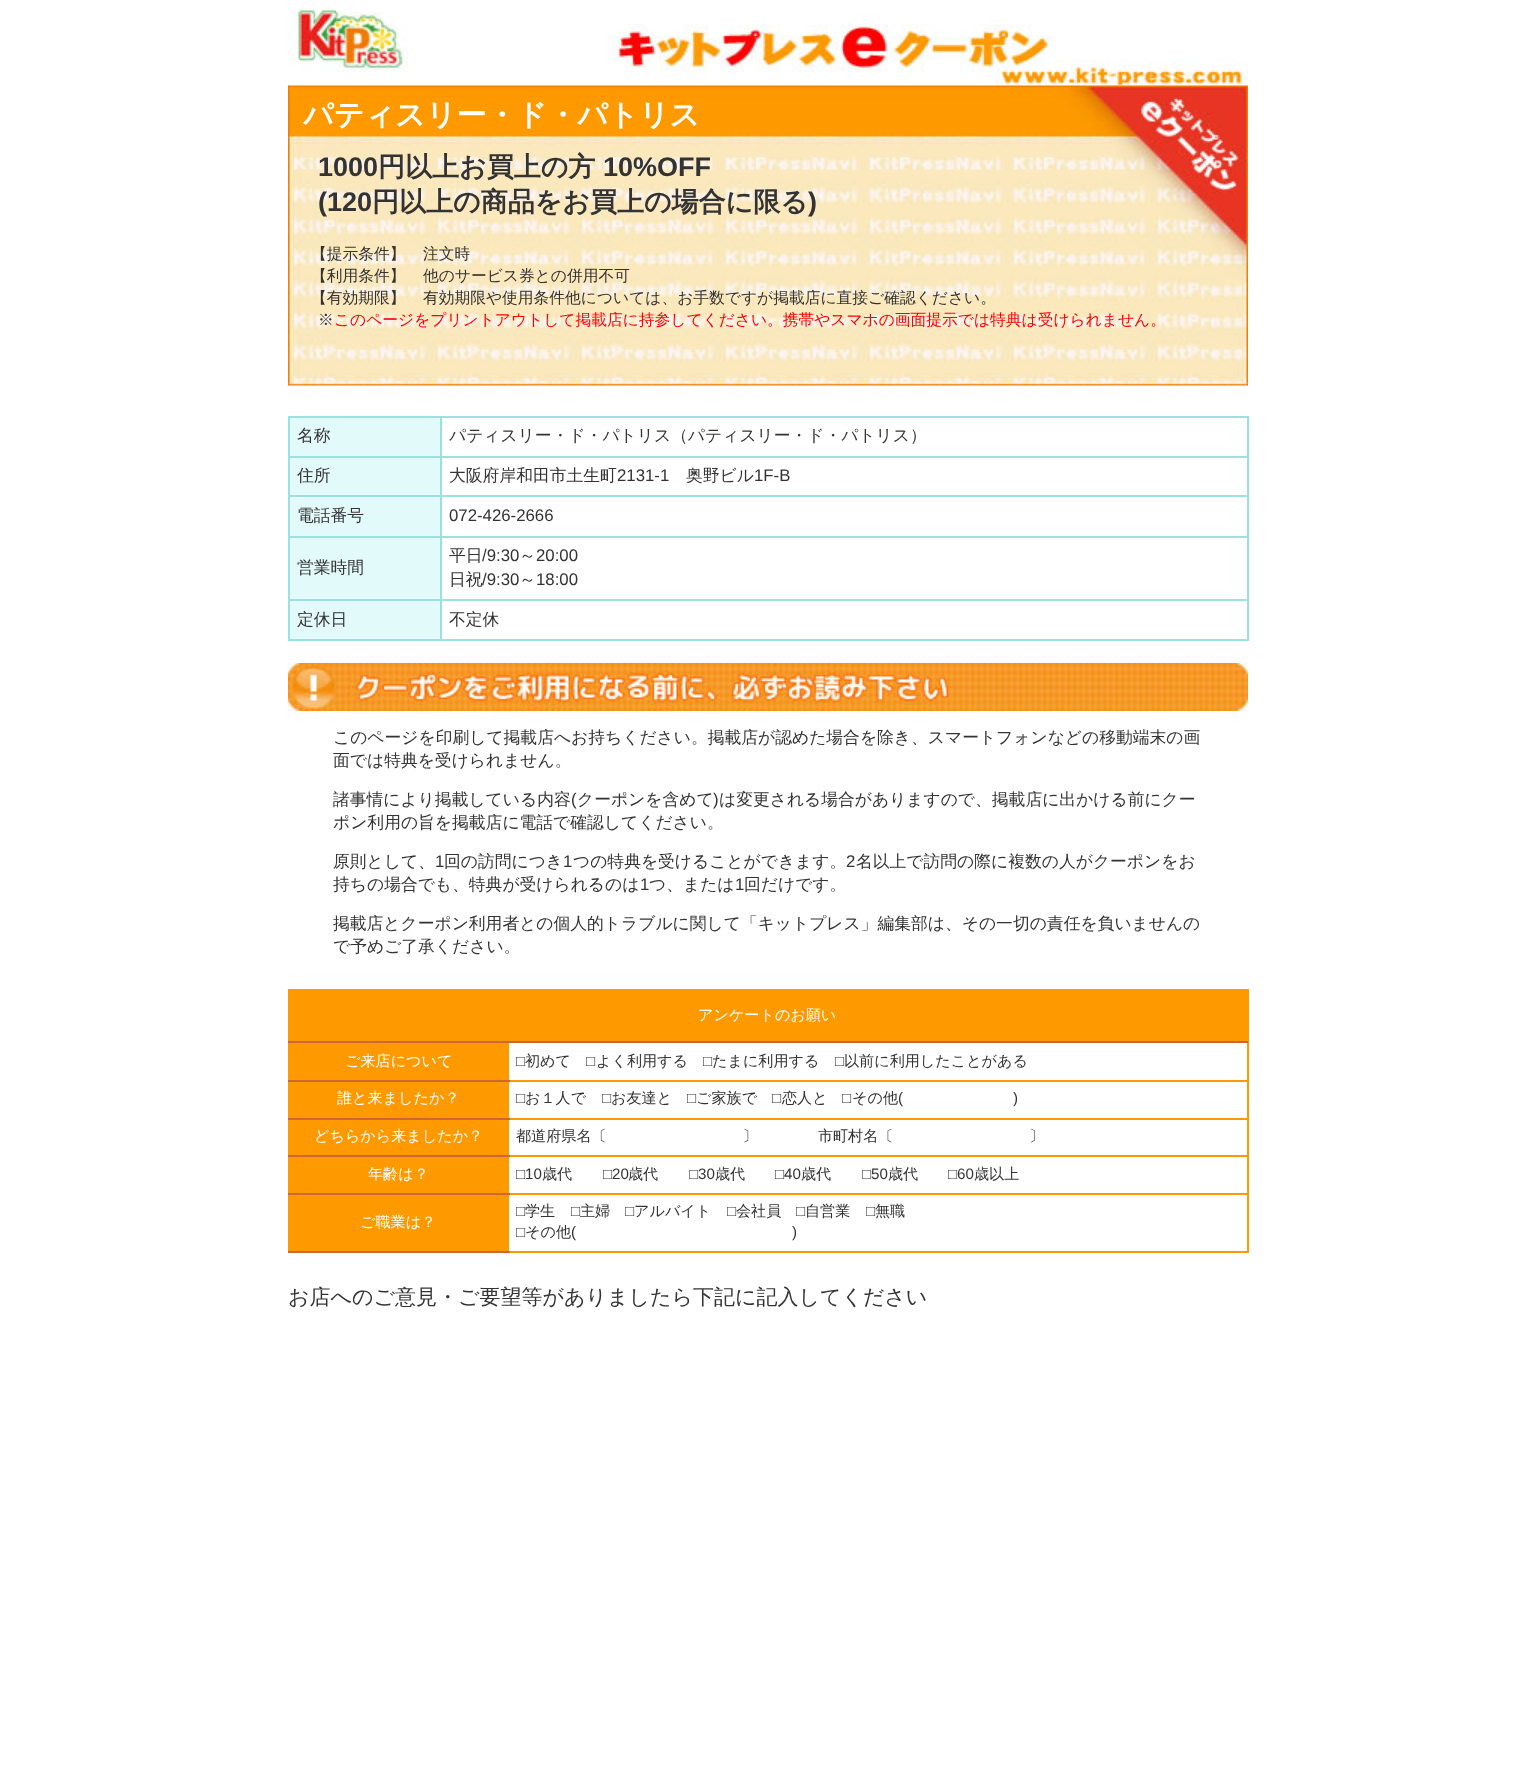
<?xml version="1.0" encoding="UTF-8"?>
<svg xmlns="http://www.w3.org/2000/svg" width="1535" height="1790">
    <rect width="100%" height="100%" fill="#FFFFFF"/>
    <image x="288" y="0" width="960" height="86" href="img_01.png"/>
    <image x="288" y="85" width="960" height="301" href="img_02.png"/>
    <text x="303" y="125" font-family="WenQuanYi Zen Hei" font-size="30" font-weight="700" fill="#FFFFFF">パティスリー・ド・パトリス</text>
    <text x="318" y="176" font-family="Liberation Sans" font-size="27" font-weight="700" fill="#333333">1000</text>
    <text x="378" y="176" font-family="WenQuanYi Zen Hei" font-size="27" font-weight="700" fill="#333333">円以上お買上の方</text>
    <text x="603" y="176" font-family="Liberation Sans" font-size="27" font-weight="700" fill="#333333">10%OFF</text>
    <text x="318" y="211" font-family="Liberation Sans" font-size="27" font-weight="700" fill="#333333">(120</text>
    <text x="372" y="211" font-family="WenQuanYi Zen Hei" font-size="27" font-weight="700" fill="#333333">円以上の商品をお買上の場合に限る</text>
    <text x="808" y="211" font-family="Liberation Sans" font-size="27" font-weight="700" fill="#333333">)</text>
    <text x="311" y="259" font-family="WenQuanYi Zen Hei" font-size="15.75" font-weight="500" fill="#333333">【提示条件】</text>
    <text x="423" y="259" font-family="WenQuanYi Zen Hei" font-size="15.75" font-weight="500" fill="#333333">注文時</text>
    <text x="311" y="281" font-family="WenQuanYi Zen Hei" font-size="15.75" font-weight="500" fill="#333333">【利用条件】</text>
    <text x="423" y="281" font-family="WenQuanYi Zen Hei" font-size="15.75" font-weight="500" fill="#333333">他のサービス券との併用不可</text>
    <text x="311" y="303" font-family="WenQuanYi Zen Hei" font-size="15.75" font-weight="500" fill="#333333">【有効期限】</text>
    <text x="423" y="303" font-family="WenQuanYi Zen Hei" font-size="15.75" font-weight="500" fill="#333333">有効期限や使用条件他については、お手数ですが掲載店に直接ご確認ください。</text>
    <text x="318" y="325" font-family="WenQuanYi Zen Hei" font-size="15.75" font-weight="500" fill="#333333">※</text>
    <text x="334" y="325" font-family="WenQuanYi Zen Hei" font-size="15.75" font-weight="500" fill="#FF0000">このページをプリントアウトして掲載店に持参してください。携帯やスマホの画面提示では特典は受けられません。</text>
    <rect x="290" y="418" width="150" height="38" fill="#E3FAFA"/>
    <rect x="440" y="416" width="808" height="2" fill="#9CE0E0"/>
    <rect x="440" y="456" width="808" height="2" fill="#9CE0E0"/>
    <rect x="440" y="495" width="808" height="2" fill="#9CE0E0"/>
    <rect x="440" y="536" width="808" height="2" fill="#9CE0E0"/>
    <rect x="440" y="599" width="808" height="2" fill="#9CE0E0"/>
    <rect x="1247" y="599" width="2" height="42" fill="#9CE0E0"/>
    <rect x="440" y="639" width="808" height="2" fill="#9CE0E0"/>
    <rect x="440" y="599" width="2" height="42" fill="#9CE0E0"/>
    <rect x="288" y="599" width="153" height="2" fill="#9CE0E0"/>
    <rect x="440" y="536" width="2" height="64" fill="#9CE0E0"/>
    <rect x="288" y="536" width="153" height="2" fill="#9CE0E0"/>
    <rect x="440" y="495" width="2" height="42" fill="#9CE0E0"/>
    <rect x="288" y="495" width="153" height="2" fill="#9CE0E0"/>
    <rect x="440" y="456" width="2" height="41" fill="#9CE0E0"/>
    <rect x="288" y="456" width="153" height="2" fill="#9CE0E0"/>
    <rect x="440" y="416" width="2" height="42" fill="#9CE0E0"/>
    <rect x="288" y="416" width="153" height="2" fill="#9CE0E0"/>
    <rect x="288" y="639" width="153" height="2" fill="#9CE0E0"/>
    <rect x="288" y="599" width="2" height="42" fill="#9CE0E0"/>
    <rect x="288" y="536" width="2" height="64" fill="#9CE0E0"/>
    <rect x="288" y="495" width="2" height="42" fill="#9CE0E0"/>
    <rect x="288" y="456" width="2" height="41" fill="#9CE0E0"/>
    <rect x="288" y="416" width="2" height="42" fill="#9CE0E0"/>
    <text x="297" y="441" font-family="WenQuanYi Zen Hei" font-size="16.8" font-weight="500" fill="#333333">名称</text>
    <rect x="1247" y="536" width="2" height="64" fill="#9CE0E0"/>
    <rect x="1247" y="495" width="2" height="42" fill="#9CE0E0"/>
    <rect x="1247" y="456" width="2" height="41" fill="#9CE0E0"/>
    <rect x="1247" y="416" width="2" height="42" fill="#9CE0E0"/>
    <text x="449" y="441" font-family="WenQuanYi Zen Hei" font-size="16.8" font-weight="500" fill="#333333">パティスリー・ド・パトリス（パティスリー・ド・パトリス）</text>
    <rect x="290" y="458" width="150" height="37" fill="#E3FAFA"/>
    <text x="297" y="481" font-family="WenQuanYi Zen Hei" font-size="16.8" font-weight="500" fill="#333333">住所</text>
    <text x="449" y="481" font-family="WenQuanYi Zen Hei" font-size="16.8" font-weight="500" fill="#333333">大阪府岸和田市土生町</text>
    <text x="617" y="481" font-family="Liberation Sans" font-size="16.8" fill="#333333">2131-1</text>
    <text x="686" y="481" font-family="WenQuanYi Zen Hei" font-size="16.8" font-weight="500" fill="#333333">奥野ビル</text>
    <text x="754" y="481" font-family="Liberation Sans" font-size="16.8" fill="#333333">1F-B</text>
    <rect x="290" y="497" width="150" height="39" fill="#E3FAFA"/>
    <text x="297" y="521" font-family="WenQuanYi Zen Hei" font-size="16.8" font-weight="500" fill="#333333">電話番号</text>
    <text x="449" y="521" font-family="Liberation Sans" font-size="16.8" fill="#333333">072-426-2666</text>
    <rect x="290" y="538" width="150" height="61" fill="#E3FAFA"/>
    <text x="297" y="573" font-family="WenQuanYi Zen Hei" font-size="16.8" font-weight="500" fill="#333333">営業時間</text>
    <text x="449" y="561" font-family="WenQuanYi Zen Hei" font-size="16.8" font-weight="500" fill="#333333">平日</text>
    <text x="482" y="561" font-family="Liberation Sans" font-size="16.8" fill="#333333">/9:30</text>
    <text x="519" y="561" font-family="WenQuanYi Zen Hei" font-size="16.8" font-weight="500" fill="#333333">～</text>
    <text x="536" y="561" font-family="Liberation Sans" font-size="16.8" fill="#333333">20:00</text>
    <text x="449" y="585" font-family="WenQuanYi Zen Hei" font-size="16.8" font-weight="500" fill="#333333">日祝</text>
    <text x="482" y="585" font-family="Liberation Sans" font-size="16.8" fill="#333333">/9:30</text>
    <text x="519" y="585" font-family="WenQuanYi Zen Hei" font-size="16.8" font-weight="500" fill="#333333">～</text>
    <text x="536" y="585" font-family="Liberation Sans" font-size="16.8" fill="#333333">18:00</text>
    <rect x="290" y="601" width="150" height="38" fill="#E3FAFA"/>
    <text x="297" y="625" font-family="WenQuanYi Zen Hei" font-size="16.8" font-weight="500" fill="#333333">定休日</text>
    <text x="449" y="625" font-family="WenQuanYi Zen Hei" font-size="16.8" font-weight="500" fill="#333333">不定休</text>
    <image x="288" y="663" width="960" height="48" href="img_03.png"/>
    <text font-family="WenQuanYi Zen Hei" font-size="16.8" font-weight="500" fill="#333333">
        <tspan x="333" y="743">このページを印刷して掲載店へお持ちください。掲載店が認めた場合を除き、スマートフォンなどの移動端末の画</tspan>
        <tspan x="333" y="766">面では特典を受けられません。</tspan>
    </text>
    <text x="333" y="805" font-family="WenQuanYi Zen Hei" font-size="16.8" font-weight="500" fill="#333333">諸事情により掲載している内容</text>
    <text x="571" y="805" font-family="Liberation Sans" font-size="16.8" fill="#333333">(</text>
    <text x="577" y="805" font-family="WenQuanYi Zen Hei" font-size="16.8" font-weight="500" fill="#333333">クーポンを含めて</text>
    <text x="713" y="805" font-family="Liberation Sans" font-size="16.8" fill="#333333">)</text>
    <text x="719" y="805" font-family="WenQuanYi Zen Hei" font-size="16.8" font-weight="500" fill="#333333">は変更される場合がありますので、掲載店に出かける前にクー</text>
    <text x="333" y="828" font-family="WenQuanYi Zen Hei" font-size="16.8" font-weight="500" fill="#333333">ポン利用の旨を掲載店に電話で確認してください。</text>
    <text x="333" y="867" font-family="WenQuanYi Zen Hei" font-size="16.8" font-weight="500" fill="#333333">原則として、</text>
    <text x="435" y="867" font-family="Liberation Sans" font-size="16.8" fill="#333333">1</text>
    <text x="444" y="867" font-family="WenQuanYi Zen Hei" font-size="16.8" font-weight="500" fill="#333333">回の訪問につき</text>
    <text x="563" y="867" font-family="Liberation Sans" font-size="16.8" fill="#333333">1</text>
    <text x="573" y="867" font-family="WenQuanYi Zen Hei" font-size="16.8" font-weight="500" fill="#333333">つの特典を受けることができます。</text>
    <text x="846" y="867" font-family="Liberation Sans" font-size="16.8" fill="#333333">2</text>
    <text x="856" y="867" font-family="WenQuanYi Zen Hei" font-size="16.8" font-weight="500" fill="#333333">名以上で訪問の際に複数の人がクーポンをお</text>
    <text x="333" y="890" font-family="WenQuanYi Zen Hei" font-size="16.8" font-weight="500" fill="#333333">持ちの場合でも、特典が受けられるのは</text>
    <text x="640" y="890" font-family="Liberation Sans" font-size="16.8" fill="#333333">1</text>
    <text x="649" y="890" font-family="WenQuanYi Zen Hei" font-size="16.8" font-weight="500" fill="#333333">つ、または</text>
    <text x="735" y="890" font-family="Liberation Sans" font-size="16.8" fill="#333333">1</text>
    <text x="744" y="890" font-family="WenQuanYi Zen Hei" font-size="16.8" font-weight="500" fill="#333333">回だけです。</text>
    <text font-family="WenQuanYi Zen Hei" font-size="16.8" font-weight="500" fill="#333333">
        <tspan x="333" y="929">掲載店とクーポン利用者との個人的トラブルに関して「キットプレス」編集部は、その一切の責任を負いませんの</tspan>
        <tspan x="333" y="952">で予めご了承ください。</tspan>
    </text>
    <rect x="288" y="989" width="959" height="52" fill="#FE9900"/>
    <rect x="1247" y="989" width="2" height="264" fill="#FE9900"/>
    <rect x="288" y="1041" width="960" height="2" fill="#CC6633"/>
    <text x="698" y="1020" font-family="WenQuanYi Zen Hei" font-size="15.1" font-weight="500" fill="#FFFFFF">アンケートのお願い</text>
    <rect x="288" y="1043" width="221" height="37" fill="#FE9900"/>
    <rect x="509" y="1080" width="739" height="2" fill="#FE9900"/>
    <rect x="288" y="1080" width="222" height="2" fill="#CC6633"/>
    <text x="345" y="1066" font-family="WenQuanYi Zen Hei" font-size="15.1" font-weight="500" fill="#FFFFFF">ご来店について</text>
    <text x="516" y="1066" font-family="Liberation Sans" font-size="15.1" fill="#333333">□</text>
    <text x="525" y="1066" font-family="WenQuanYi Zen Hei" font-size="15.1" font-weight="500" fill="#333333">初めて</text>
    <text x="586" y="1066" font-family="Liberation Sans" font-size="15.1" fill="#333333">□</text>
    <text x="596" y="1066" font-family="WenQuanYi Zen Hei" font-size="15.1" font-weight="500" fill="#333333">よく利用する</text>
    <text x="703" y="1066" font-family="Liberation Sans" font-size="15.1" fill="#333333">□</text>
    <text x="712" y="1066" font-family="WenQuanYi Zen Hei" font-size="15.1" font-weight="500" fill="#333333">たまに利用する</text>
    <text x="835" y="1066" font-family="Liberation Sans" font-size="15.1" fill="#333333">□</text>
    <text x="844" y="1066" font-family="WenQuanYi Zen Hei" font-size="15.1" font-weight="500" fill="#333333">以前に利用したことがある</text>
    <rect x="288" y="1082" width="221" height="36" fill="#FE9900"/>
    <rect x="509" y="1118" width="739" height="2" fill="#FE9900"/>
    <rect x="288" y="1118" width="222" height="2" fill="#CC6633"/>
    <text x="337" y="1103" font-family="WenQuanYi Zen Hei" font-size="15.1" font-weight="500" fill="#FFFFFF">誰と来ましたか？</text>
    <text x="516" y="1103" font-family="Liberation Sans" font-size="15.1" fill="#333333">□</text>
    <text x="525" y="1103" font-family="WenQuanYi Zen Hei" font-size="15.1" font-weight="500" fill="#333333">お１人で</text>
    <text x="602" y="1103" font-family="Liberation Sans" font-size="15.1" fill="#333333">□</text>
    <text x="611" y="1103" font-family="WenQuanYi Zen Hei" font-size="15.1" font-weight="500" fill="#333333">お友達と</text>
    <text x="687" y="1103" font-family="Liberation Sans" font-size="15.1" fill="#333333">□</text>
    <text x="696" y="1103" font-family="WenQuanYi Zen Hei" font-size="15.1" font-weight="500" fill="#333333">ご家族で</text>
    <text x="772" y="1103" font-family="Liberation Sans" font-size="15.1" fill="#333333">□</text>
    <text x="782" y="1103" font-family="WenQuanYi Zen Hei" font-size="15.1" font-weight="500" fill="#333333">恋人と</text>
    <text x="842" y="1103" font-family="Liberation Sans" font-size="15.1" fill="#333333">□</text>
    <text x="852" y="1103" font-family="WenQuanYi Zen Hei" font-size="15.1" font-weight="500" fill="#333333">その他</text>
    <text x="898" y="1103" font-family="Liberation Sans" font-size="15.1" fill="#333333">(</text>
    <text x="1013" y="1103" font-family="Liberation Sans" font-size="15.1" fill="#333333">)</text>
    <rect x="288" y="1120" width="221" height="35" fill="#FE9900"/>
    <rect x="509" y="1155" width="739" height="2" fill="#FE9900"/>
    <rect x="288" y="1155" width="222" height="2" fill="#CC6633"/>
    <text x="314" y="1141" font-family="WenQuanYi Zen Hei" font-size="15.1" font-weight="500" fill="#FFFFFF">どちらから来ましたか？</text>
    <text x="516" y="1141" font-family="WenQuanYi Zen Hei" font-size="15.1" font-weight="500" fill="#333333">都道府県名〔　　　　　　　　　〕　　　　市町村名〔　　　　　　　　　〕</text>
    <rect x="288" y="1157" width="221" height="36" fill="#FE9900"/>
    <rect x="509" y="1193" width="739" height="2" fill="#FE9900"/>
    <rect x="288" y="1193" width="222" height="2" fill="#CC6633"/>
    <text x="368" y="1179" font-family="WenQuanYi Zen Hei" font-size="15.1" font-weight="500" fill="#FFFFFF">年齢は？</text>
    <text x="516" y="1179" font-family="Liberation Sans" font-size="15.1" fill="#333333">□10</text>
    <text x="542" y="1179" font-family="WenQuanYi Zen Hei" font-size="15.1" font-weight="500" fill="#333333">歳代</text>
    <text x="603" y="1179" font-family="Liberation Sans" font-size="15.1" fill="#333333">□20</text>
    <text x="628" y="1179" font-family="WenQuanYi Zen Hei" font-size="15.1" font-weight="500" fill="#333333">歳代</text>
    <text x="689" y="1179" font-family="Liberation Sans" font-size="15.1" fill="#333333">□30</text>
    <text x="715" y="1179" font-family="WenQuanYi Zen Hei" font-size="15.1" font-weight="500" fill="#333333">歳代</text>
    <text x="775" y="1179" font-family="Liberation Sans" font-size="15.1" fill="#333333">□40</text>
    <text x="801" y="1179" font-family="WenQuanYi Zen Hei" font-size="15.1" font-weight="500" fill="#333333">歳代</text>
    <text x="862" y="1179" font-family="Liberation Sans" font-size="15.1" fill="#333333">□50</text>
    <text x="888" y="1179" font-family="WenQuanYi Zen Hei" font-size="15.1" font-weight="500" fill="#333333">歳代</text>
    <text x="948" y="1179" font-family="Liberation Sans" font-size="15.1" fill="#333333">□60</text>
    <text x="974" y="1179" font-family="WenQuanYi Zen Hei" font-size="15.1" font-weight="500" fill="#333333">歳以上</text>
    <rect x="288" y="1195" width="221" height="56" fill="#FE9900"/>
    <rect x="509" y="1251" width="739" height="2" fill="#FE9900"/>
    <rect x="288" y="1251" width="222" height="2" fill="#CC6633"/>
    <text x="360" y="1227" font-family="WenQuanYi Zen Hei" font-size="15.1" font-weight="500" fill="#FFFFFF">ご職業は？</text>
    <text x="516" y="1216" font-family="Liberation Sans" font-size="15.1" fill="#333333">□</text>
    <text x="525" y="1216" font-family="WenQuanYi Zen Hei" font-size="15.1" font-weight="500" fill="#333333">学生</text>
    <text x="571" y="1216" font-family="Liberation Sans" font-size="15.1" fill="#333333">□</text>
    <text x="580" y="1216" font-family="WenQuanYi Zen Hei" font-size="15.1" font-weight="500" fill="#333333">主婦</text>
    <text x="625" y="1216" font-family="Liberation Sans" font-size="15.1" fill="#333333">□</text>
    <text x="634" y="1216" font-family="WenQuanYi Zen Hei" font-size="15.1" font-weight="500" fill="#333333">アルバイト</text>
    <text x="727" y="1216" font-family="Liberation Sans" font-size="15.1" fill="#333333">□</text>
    <text x="736" y="1216" font-family="WenQuanYi Zen Hei" font-size="15.1" font-weight="500" fill="#333333">会社員</text>
    <text x="796" y="1216" font-family="Liberation Sans" font-size="15.1" fill="#333333">□</text>
    <text x="805" y="1216" font-family="WenQuanYi Zen Hei" font-size="15.1" font-weight="500" fill="#333333">自営業</text>
    <text x="866" y="1216" font-family="Liberation Sans" font-size="15.1" fill="#333333">□</text>
    <text x="875" y="1216" font-family="WenQuanYi Zen Hei" font-size="15.1" font-weight="500" fill="#333333">無職</text>
    <text x="516" y="1237" font-family="Liberation Sans" font-size="15.1" fill="#333333">□</text>
    <text x="525" y="1237" font-family="WenQuanYi Zen Hei" font-size="15.1" font-weight="500" fill="#333333">その他</text>
    <text x="571" y="1237" font-family="Liberation Sans" font-size="15.1" fill="#333333">(</text>
    <text x="792" y="1237" font-family="Liberation Sans" font-size="15.1" fill="#333333">)</text>
    <text x="288" y="1304" font-family="WenQuanYi Zen Hei" font-size="21" font-weight="500" fill="#333333">お店へのご意見・ご要望等がありましたら下記に記入してください</text>
</svg>
